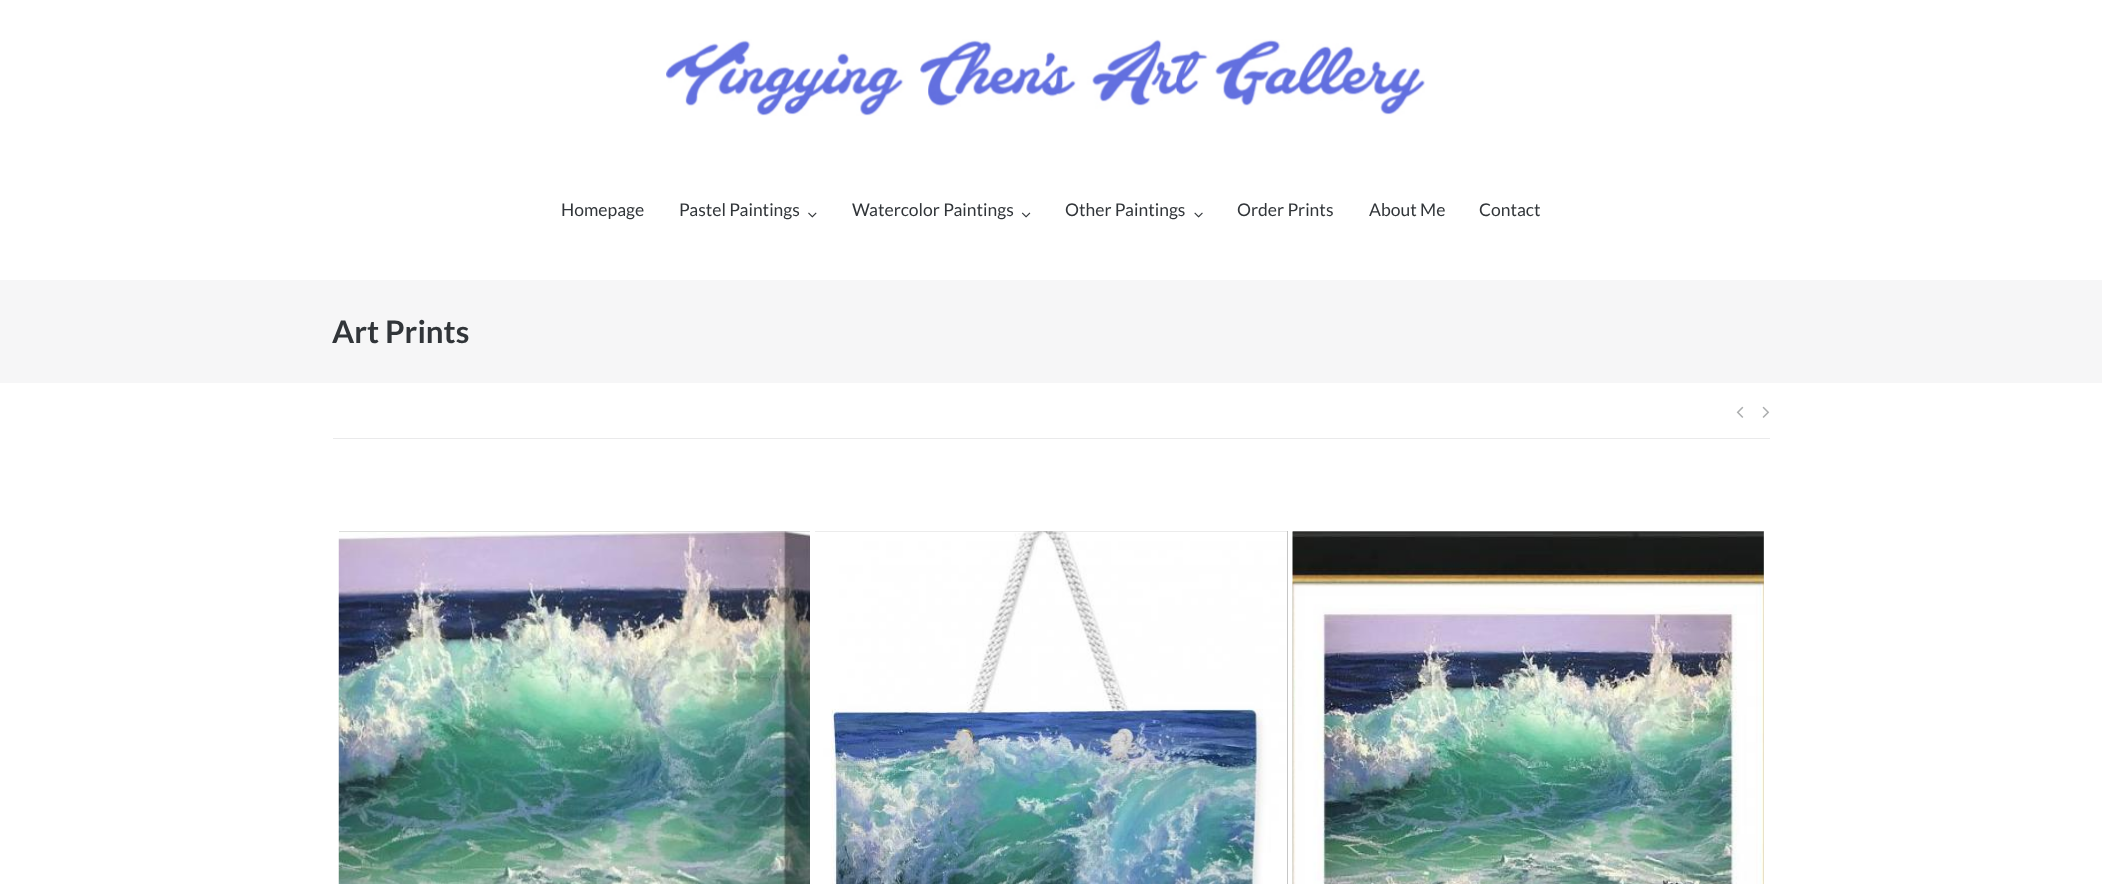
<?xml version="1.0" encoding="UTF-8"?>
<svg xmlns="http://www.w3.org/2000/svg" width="2102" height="884">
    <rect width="100%" height="100%" fill="#FFFFFF"/>
    <image x="666" y="39" width="759" height="77" href="img_01.png"/>
    <text x="561" y="216" font-family="Lato" font-size="17.5" fill="#313539">Homepage</text>
    <text x="679" y="216" font-family="Lato" font-size="17.5" fill="#313539">Pastel Paintings</text>
    <image x="808" y="212" width="9" height="6" href="img_02.png"/>
    <text x="852" y="216" font-family="Lato" font-size="17.5" fill="#313539">Watercolor Paintings</text>
    <image x="1021" y="212" width="10" height="6" href="img_03.png"/>
    <text x="1065" y="216" font-family="Lato" font-size="17.5" fill="#313539">Other Paintings</text>
    <image x="1194" y="212" width="9" height="6" href="img_04.png"/>
    <text x="1237" y="216" font-family="Lato" font-size="17.5" fill="#313539">Order Prints</text>
    <text x="1369" y="216" font-family="Lato" font-size="17.5" fill="#313539">About Me</text>
    <text x="1479" y="216" font-family="Lato" font-size="17.5" fill="#313539">Contact</text>
    <rect x="0" y="280" width="2102" height="103" fill="#F6F6F7"/>
    <text x="332" y="343" font-family="Lato" font-size="31.25" font-weight="700" fill="#313539">Art Prints</text>
    <rect x="333" y="438" width="1437" height="1" fill="#EAEAEB"/>
    <image x="1736" y="406" width="8" height="12" href="img_05.png"/>
    <image x="1762" y="406" width="8" height="12" href="img_06.png"/>
    <rect x="339" y="531" width="471" height="1" fill="#B3B3B3"/>
    <image x="338" y="531" width="472" height="353" href="img_07.png"/>
    <rect x="815" y="531" width="473" height="353" fill="#B3B3B3"/>
    <image x="815" y="531" width="473" height="353" href="img_08.png"/>
    <rect x="1293" y="531" width="471" height="353" fill="#B3B3B3"/>
    <image x="1292" y="531" width="472" height="353" href="img_09.png"/>
</svg>
